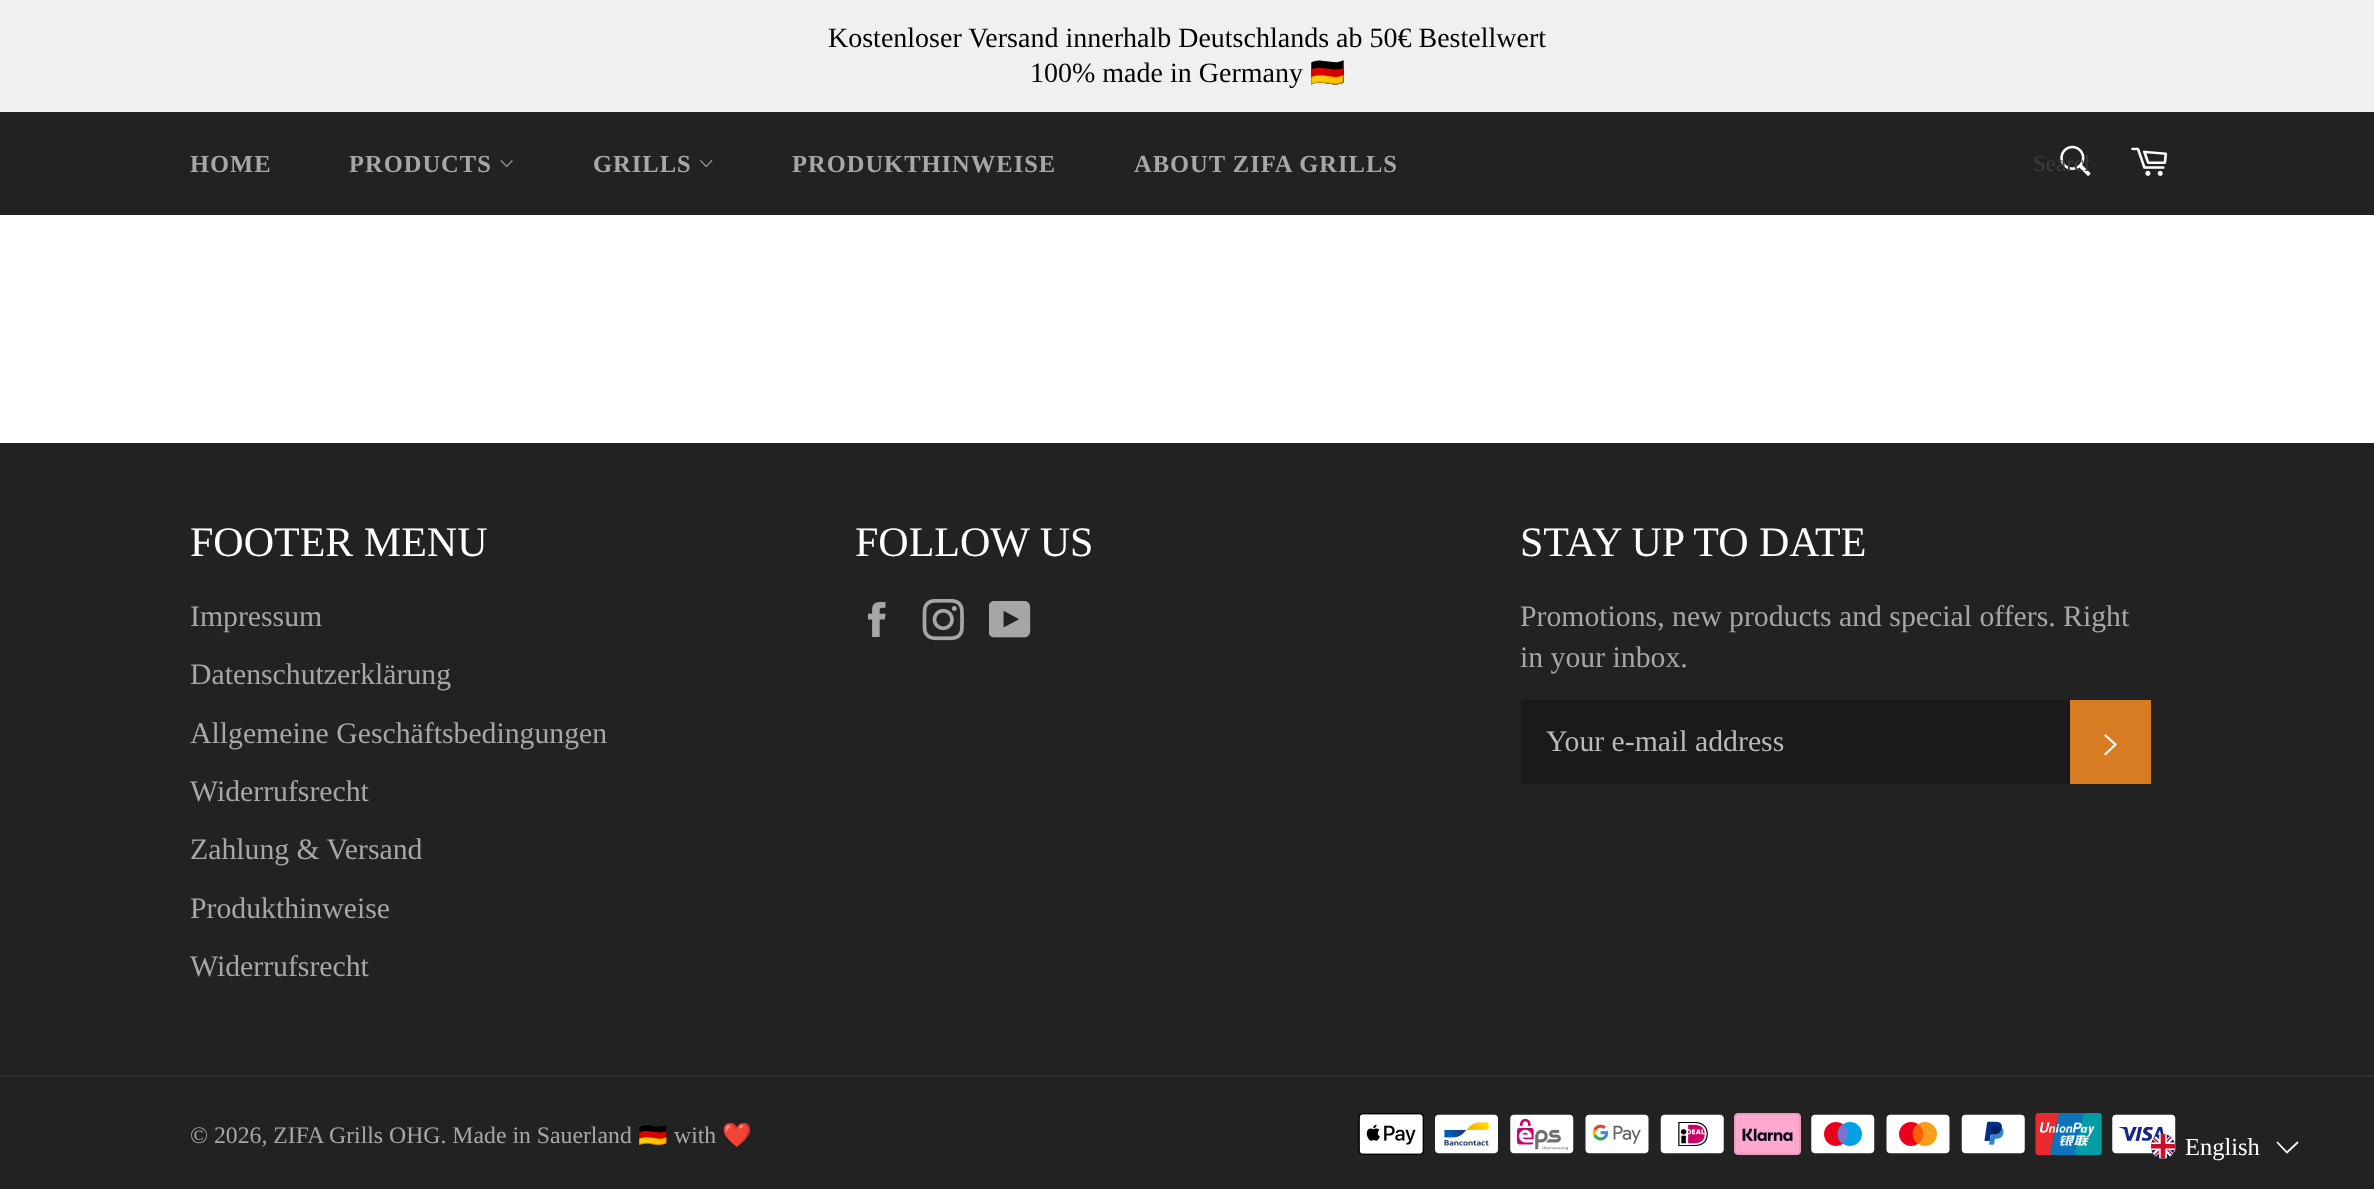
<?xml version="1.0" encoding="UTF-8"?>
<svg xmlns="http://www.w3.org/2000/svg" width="2374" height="1189">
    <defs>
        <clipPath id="clip1"><rect x="2034" y="151" width="56" height="28"/></clipPath>
    </defs>
    <rect width="100%" height="100%" fill="#FFFFFF"/>
    <rect x="0" y="0" width="2374" height="112" fill="#F0F0F0"/>
    <text x="828" y="47" font-family="Liberation Serif" font-size="28" fill="#000000">Kostenloser Versand innerhalb Deutschlands ab 50€ Bestellwert</text>
    <text x="1030" y="82" font-family="Liberation Serif" font-size="28" fill="#000000">100% made in Germany</text>
    <text x="1310" y="82" font-family="Noto Color Emoji" font-size="28" fill="#000000">🇩🇪</text>
    <rect x="0" y="112" width="2374" height="103" fill="#222222"/>
    <text x="190" y="172" font-family="Liberation Serif" font-size="24.5" font-weight="700" letter-spacing="1" fill="#A7A7A7">HOME</text>
    <text x="349" y="172" font-family="Liberation Serif" font-size="24.5" font-weight="700" letter-spacing="1" fill="#A7A7A7">PRODUCTS</text>
    <image x="500" y="160" width="13" height="8" href="img_01.png"/>
    <text x="593" y="172" font-family="Liberation Serif" font-size="24.5" font-weight="700" letter-spacing="1" fill="#A7A7A7">GRILLS</text>
    <image x="700" y="160" width="13" height="8" href="img_02.png"/>
    <text x="792" y="172" font-family="Liberation Serif" font-size="24.5" font-weight="700" letter-spacing="1" fill="#A7A7A7">PRODUKTHINWEISE</text>
    <text x="1134" y="172" font-family="Liberation Serif" font-size="24.5" font-weight="700" letter-spacing="1" fill="#A7A7A7">ABOUT ZIFA GRILLS</text>
    <image x="2060" y="145" width="31" height="32" href="img_03.png"/>
    <g clip-path="url(#clip1)">
        <text x="2033" y="171" font-family="Liberation Serif" font-size="23" fill="#3E3E3E">Search</text>
    </g>
    <image x="2131" y="147" width="37" height="29" href="img_04.png"/>
    <rect x="0" y="443" width="2374" height="746" fill="#222222"/>
    <text x="190" y="556" font-family="Liberation Serif" font-size="42" fill="#FFFFFF">FOOTER MENU</text>
    <text font-family="Liberation Serif" font-size="29.75" fill="#A7A7A7">
        <tspan x="190" y="626">Impressum</tspan>
        <tspan x="190" y="684">Datenschutzerklärung</tspan>
        <tspan x="190" y="743">Allgemeine Geschäftsbedingungen</tspan>
        <tspan x="190" y="801">Widerrufsrecht</tspan>
        <tspan x="190" y="859">Zahlung &amp; Versand</tspan>
        <tspan x="190" y="918">Produkthinweise</tspan>
        <tspan x="190" y="976">Widerrufsrecht</tspan>
    </text>
    <text x="855" y="556" font-family="Liberation Serif" font-size="42" fill="#FFFFFF">FOLLOW US</text>
    <image x="868" y="602" width="18" height="35" href="img_05.png"/>
    <image x="922" y="599" width="42" height="42" href="img_06.png"/>
    <image x="989" y="601" width="42" height="37" href="img_07.png"/>
    <text x="1520" y="556" font-family="Liberation Serif" font-size="42" fill="#FFFFFF">STAY UP TO DATE</text>
    <text font-family="Liberation Serif" font-size="29.75" fill="#A7A7A7">
        <tspan x="1520" y="626">Promotions, new products and special offers. Right</tspan>
        <tspan x="1520" y="667">in your inbox.</tspan>
    </text>
    <rect x="1521" y="700" width="549" height="84" fill="#1A1A1A"/>
    <text x="1546" y="751" font-family="Liberation Serif" font-size="29.75" fill="#BABABA">Your e-mail address</text>
    <rect x="2070" y="700" width="81" height="84" fill="#D87C23"/>
    <path d="M 2104 735.5 L 2105.5 734 L 2117 744.5 L 2105.5 755.5 L 2104 754 L 2114 744.5 Z" fill="#FFFFFF"/>
    <rect x="0" y="1075" width="2374" height="2" fill="#2F2F2F"/>
    <text x="190" y="1143" font-family="Liberation Serif" font-size="23.75" fill="#A7A7A7">© 2026, ZIFA Grills OHG. Made in Sauerland</text>
    <text x="638" y="1143" font-family="Noto Color Emoji" font-size="23.75" fill="#A7A7A7">🇩🇪</text>
    <text x="674" y="1143" font-family="Liberation Serif" font-size="23.75" fill="#A7A7A7">with</text>
    <text x="722" y="1143" font-family="Noto Color Emoji" font-size="23.75" fill="#A7A7A7">❤️</text>
    <image x="1358" y="1113" width="66" height="42" href="img_08.png"/>
    <image x="1435" y="1114" width="63" height="40" href="img_09.png"/>
    <image x="1510" y="1114" width="64" height="40" href="img_10.png"/>
    <image x="1585" y="1114" width="64" height="40" href="img_11.png"/>
    <image x="1660" y="1114" width="64" height="40" href="img_12.png"/>
    <image x="1734" y="1113" width="67" height="42" href="img_13.png"/>
    <image x="1811" y="1114" width="64" height="40" href="img_14.png"/>
    <image x="1886" y="1114" width="64" height="40" href="img_15.png"/>
    <image x="1961" y="1114" width="64" height="40" href="img_16.png"/>
    <image x="2035" y="1113" width="67" height="42" href="img_17.png"/>
    <image x="2112" y="1114" width="64" height="40" href="img_18.png"/>
    <image x="2151" y="1134" width="24" height="25" href="img_19.png"/>
    <text x="2185" y="1155" font-family="Liberation Serif" font-size="24.5" fill="#FFFFFF">English</text>
    <path d="M 2277 1142 L 2287 1152.5 L 2298 1142" fill="none" stroke="#FFFFFF" stroke-width="1.8"/>
</svg>
